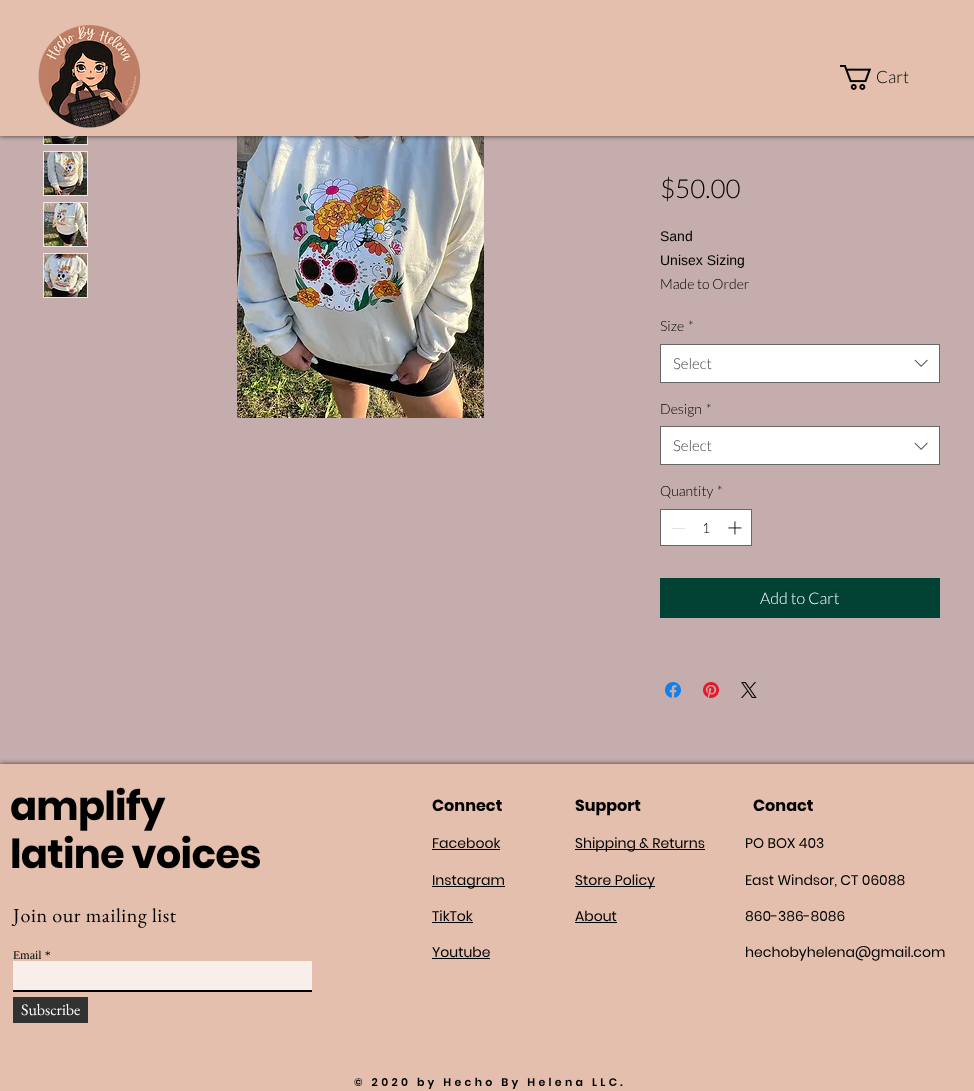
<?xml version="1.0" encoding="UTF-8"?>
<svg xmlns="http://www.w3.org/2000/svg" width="974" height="1091">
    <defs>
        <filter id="blur1" x="-50%" y="-200%" width="200%" height="500%"><feGaussianBlur stdDeviation="2.5"/></filter>
    </defs>
    <rect width="100%" height="100%" fill="#C4ADAC"/>
    <rect x="43" y="136" width="45" height="9" fill="#E8E6E6"/>
    <image x="44" y="136" width="43" height="8" href="img_03.png"/>
    <image x="237" y="136" width="247" height="282" href="img_07.png"/>
    <rect x="0" y="0" width="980" height="136" fill="#000000" fill-opacity="0.7" filter="url(#blur1)"/>
    <rect x="0" y="0" width="974" height="136" fill="#E4BFAD"/>
    <image x="38" y="25" width="103" height="103" href="img_01.png"/>
    <image x="840" y="65" width="32" height="25" href="img_02.png"/>
    <text x="876" y="83" font-family="Lato" font-size="17" font-weight="300" fill="#000000">Cart</text>
    <rect x="43" y="151" width="45" height="45" fill="#E8E6E6"/>
    <image x="44" y="152" width="43" height="43" href="img_04.png"/>
    <rect x="43" y="202" width="45" height="45" fill="#E8E6E6"/>
    <image x="44" y="203" width="43" height="43" href="img_05.png"/>
    <rect x="43" y="253" width="45" height="45" fill="#E8E6E6"/>
    <image x="44" y="254" width="43" height="43" href="img_06.png"/>
    <text x="660" y="198" font-family="Lato" font-size="26" font-weight="300" fill="#000000">$50.00</text>
    <text font-family="Liberation Sans" font-size="14" fill="#000000">
        <tspan x="660" y="241">Sand</tspan>
        <tspan x="660" y="265">Unisex Sizing</tspan>
    </text>
    <text x="660" y="289" font-family="Lato" font-size="14" font-weight="300" fill="#000000">Made to Order</text>
    <text x="660" y="331" font-family="Lato" font-size="14" font-weight="300" fill="#000000">Size</text>
    <text x="688" y="331" font-family="Lato" font-size="14" font-weight="300" fill="#000000">*</text>
    <rect x="660.5" y="344.5" width="279" height="38" fill="#FFFFFF" stroke="#666666"/>
    <text x="673" y="369" font-family="Lato" font-size="15" font-weight="300" fill="#444444">Select</text>
    <image x="914" y="359" width="14" height="8" href="img_08.png"/>
    <text x="660" y="414" font-family="Lato" font-size="14" font-weight="300" fill="#000000">Design</text>
    <text x="706" y="414" font-family="Lato" font-size="14" font-weight="300" fill="#000000">*</text>
    <rect x="660.5" y="426.5" width="279" height="38" fill="#FFFFFF" stroke="#666666"/>
    <text x="673" y="451" font-family="Lato" font-size="15" font-weight="300" fill="#444444">Select</text>
    <image x="914" y="442" width="14" height="8" href="img_08.png"/>
    <text x="660" y="496" font-family="Lato" font-size="14" font-weight="300" fill="#000000">Quantity</text>
    <text x="717" y="496" font-family="Lato" font-size="14" font-weight="300" fill="#000000">*</text>
    <rect x="660.5" y="509.5" width="91" height="36" fill="#FFFFFF" stroke="#666666"/>
    <rect x="672" y="528" width="13" height="1" fill="#E3E3E3"/>
    <text x="702" y="533" font-family="Lato" font-size="14" font-weight="300" fill="#000000">1</text>
    <image x="728" y="521" width="14" height="14" href="img_09.png"/>
    <rect x="660" y="578" width="280" height="40" fill="#014235"/>
    <text x="760" y="604" font-family="Lato" font-size="16" font-weight="300" fill="#FFFFFF">Add to Cart</text>
    <image x="665" y="682" width="16" height="16" href="img_10.png"/>
    <image x="703" y="682" width="16" height="16" href="img_11.png"/>
    <image x="741" y="682" width="16" height="16" href="img_12.png"/>
    <rect x="0" y="764" width="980" height="327" fill="#000000" fill-opacity="0.7" filter="url(#blur1)"/>
    <rect x="0" y="764" width="974" height="327" fill="#E4BFAD"/>
    <text font-family="Poppins" font-size="40" font-weight="700" letter-spacing="-0.75" fill="#000000">
        <tspan x="10" y="820">amplify</tspan>
        <tspan x="10" y="868">latine voices</tspan>
    </text>
    <text x="432" y="811" font-family="Poppins" font-size="16" font-weight="700" fill="#000000">Connect</text>
    <text x="575" y="811" font-family="Poppins" font-size="16" font-weight="700" fill="#000000">Support</text>
    <text x="753" y="811" font-family="Poppins" font-size="16" font-weight="700" fill="#000000">Conact</text>
    <text x="13" y="922" font-family="EB Garamond" font-size="20" letter-spacing="0.6" fill="#000000">Join our mailing list</text>
    <text x="13" y="959" font-family="Liberation Serif" font-size="12" fill="#000000">Email *</text>
    <rect x="13" y="961" width="299" height="29" fill="#F8EFEB"/>
    <rect x="13" y="990" width="299" height="2" fill="#000000"/>
    <rect x="13" y="997" width="75" height="26" fill="#323232"/>
    <text x="21" y="1015" font-family="EB Garamond" font-size="16" fill="#FFFFFF">Subscribe</text>
    <text x="432" y="848" font-family="Poppins" font-size="14" fill="#000000">Facebook</text>
    <rect x="432" y="849" width="68" height="1" fill="#000000"/>
    <rect x="432" y="886" width="73" height="1" fill="#000000"/>
    <text x="432" y="885" font-family="Poppins" font-size="14" fill="#000000">Instagram</text>
    <text x="432" y="921" font-family="Poppins" font-size="14" fill="#000000">TikTok</text>
    <rect x="432" y="922" width="41" height="1" fill="#000000"/>
    <text x="432" y="957" font-family="Poppins" font-size="14" fill="#000000">Youtube</text>
    <rect x="432" y="958" width="58" height="1" fill="#000000"/>
    <rect x="575" y="849" width="130" height="1" fill="#000000"/>
    <text x="575" y="848" font-family="Poppins" font-size="14" fill="#000000">Shipping &amp; Returns</text>
    <rect x="575" y="886" width="80" height="1" fill="#000000"/>
    <text x="575" y="885" font-family="Poppins" font-size="14" fill="#000000">Store Policy</text>
    <text x="575" y="921" font-family="Poppins" font-size="14" fill="#000000">About</text>
    <rect x="575" y="922" width="42" height="1" fill="#000000"/>
    <text x="745" y="848" font-family="Poppins" font-size="14" fill="#000000">PO BOX 403</text>
    <text x="745" y="885" font-family="Poppins" font-size="14" fill="#000000">East Windsor, CT 06088</text>
    <text x="745" y="921" font-family="Poppins" font-size="14" fill="#000000">860-386-8086</text>
    <text x="745" y="957" font-family="Poppins" font-size="14" fill="#000000">hechobyhelena@gmail.com</text>
    <text x="354" y="1086" font-family="Poppins" font-size="11" font-weight="600" letter-spacing="3.3" fill="#000000">© 2020 by Hecho By Helena LLC.</text>
</svg>
